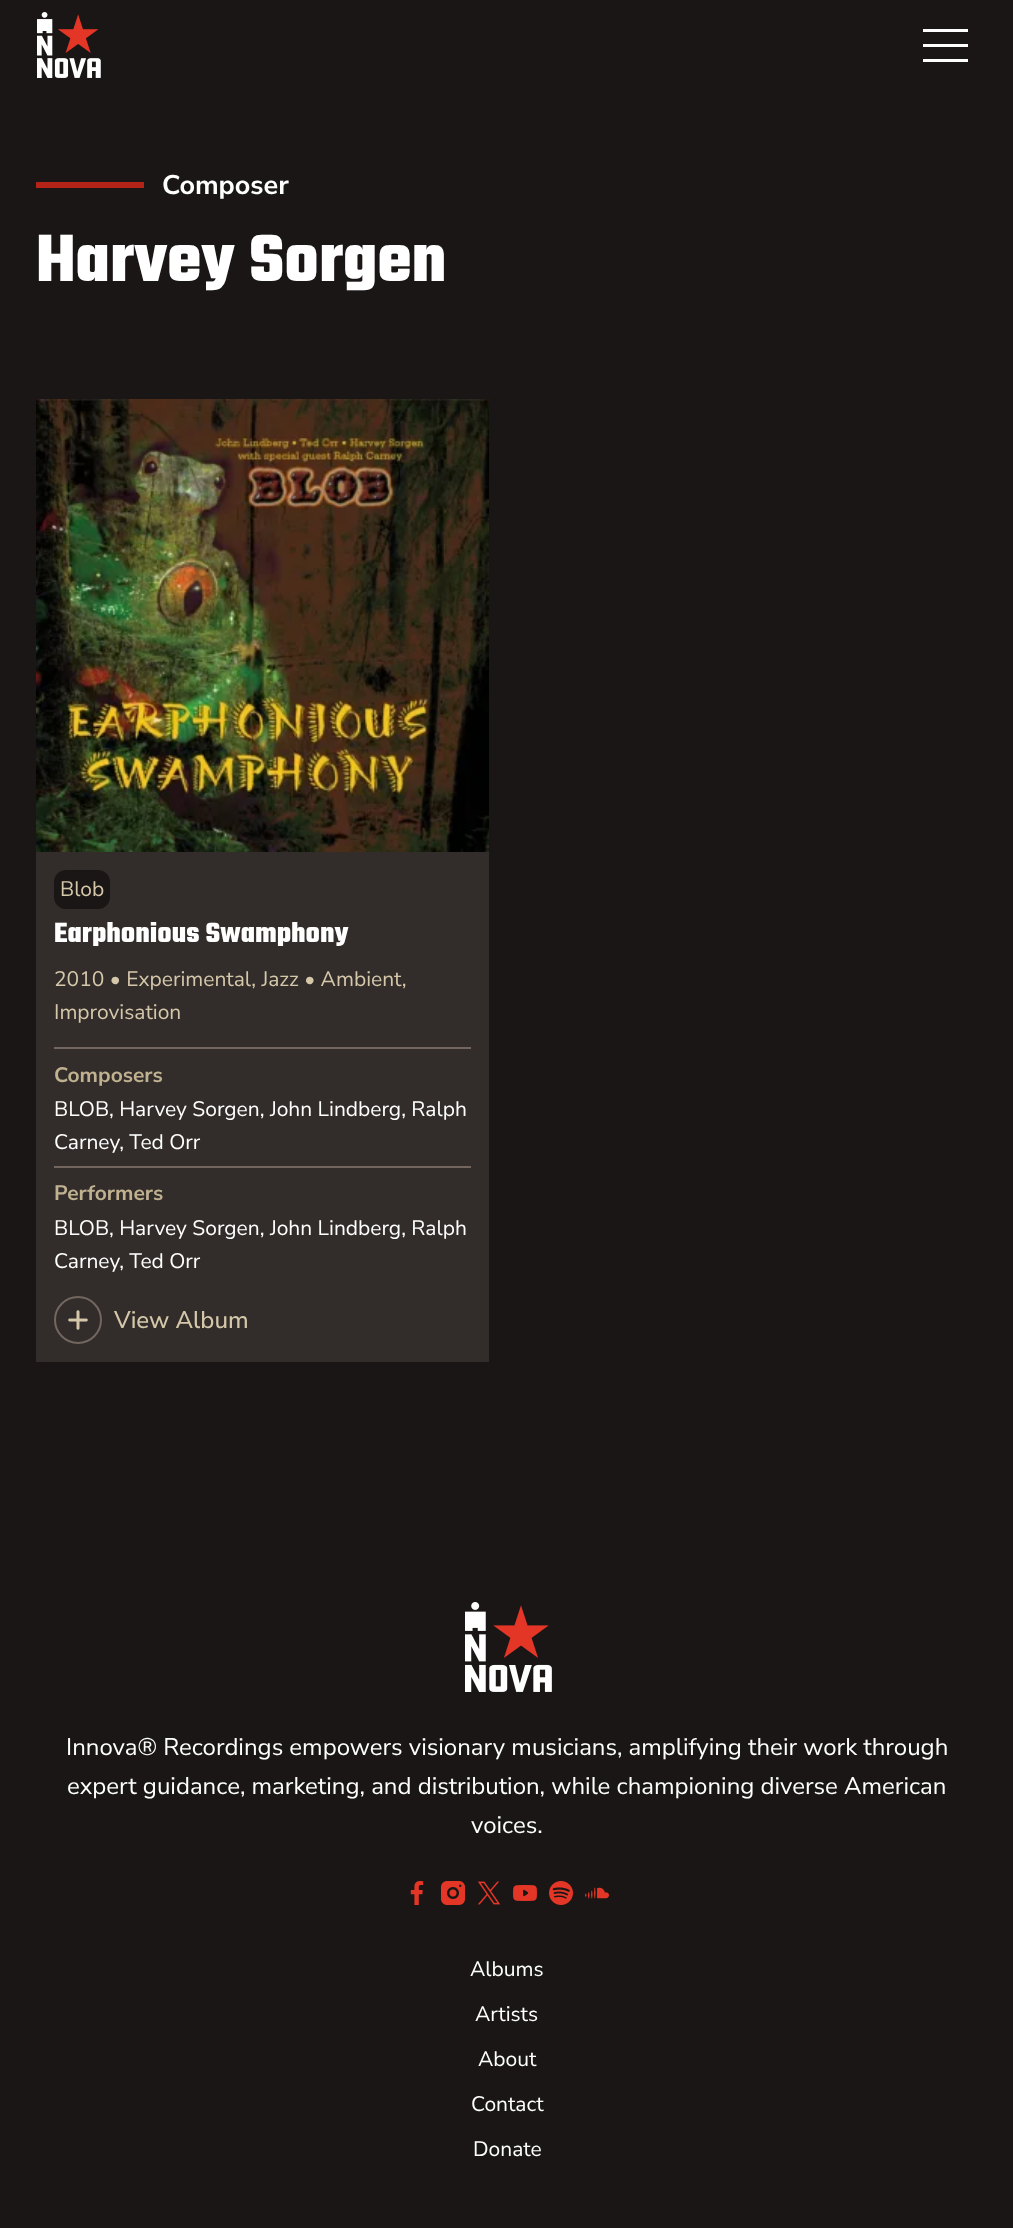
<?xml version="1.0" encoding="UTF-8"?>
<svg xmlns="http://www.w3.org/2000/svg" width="1013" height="2228">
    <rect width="100%" height="100%" fill="#191615"/>
    <image x="37" y="12" width="64" height="66" href="img_01.png"/>
    <rect x="923" y="29" width="45" height="3" fill="#FFFFFF"/>
    <rect x="923" y="44" width="45" height="3" fill="#FFFFFF"/>
    <rect x="923" y="59" width="45" height="3" fill="#FFFFFF"/>
    <rect x="36" y="182" width="108" height="6" fill="#B32317"/>
    <text x="162" y="194" font-family="Nunito Sans" font-size="27" font-weight="700" fill="#FFFFFF">Composer</text>
    <text x="36" y="281" font-family="Teko" font-size="72" font-weight="700" fill="#FFFFFF">Harvey Sorgen</text>
    <rect x="36" y="852" width="453" height="510" fill="#322D2A"/>
    <image x="36" y="399" width="453" height="453" href="img_02.png"/>
    <rect x="54" y="870" width="56" height="39" rx="12" fill="#191615"/>
    <text x="60" y="896" font-family="Nunito Sans" font-size="21" fill="#D5C7AA">Blob</text>
    <text x="54" y="942" font-family="Teko" font-size="30" font-weight="700" fill="#FFFFFF">Earphonious Swamphony</text>
    <text font-family="Nunito Sans" font-size="21" fill="#D5C7AA">
        <tspan x="54" y="986">2010 • Experimental, Jazz • Ambient,</tspan>
        <tspan x="54" y="1019">Improvisation</tspan>
    </text>
    <rect x="54" y="1047" width="417" height="2" fill="#72665F"/>
    <text x="54" y="1082" font-family="Nunito Sans" font-size="21" font-weight="700" fill="#C0B191">Composers</text>
    <text font-family="Nunito Sans" font-size="21" fill="#FFFFFF">
        <tspan x="54" y="1116">BLOB, Harvey Sorgen, John Lindberg, Ralph</tspan>
        <tspan x="54" y="1149">Carney, Ted Orr</tspan>
    </text>
    <rect x="54" y="1166" width="417" height="2" fill="#72665F"/>
    <text x="54" y="1200" font-family="Nunito Sans" font-size="21" font-weight="700" fill="#C0B191">Performers</text>
    <text font-family="Nunito Sans" font-size="21" fill="#FFFFFF">
        <tspan x="54" y="1235">BLOB, Harvey Sorgen, John Lindberg, Ralph</tspan>
        <tspan x="54" y="1268">Carney, Ted Orr</tspan>
    </text>
    <circle cx="78" cy="1320" r="23" fill="none" stroke="#72665F" stroke-width="2"/>
    <image x="68" y="1310" width="20" height="20" href="img_03.png"/>
    <text x="114" y="1328" font-family="Nunito Sans" font-size="24" font-weight="500" fill="#D5C7AA">View Album</text>
    <image x="465" y="1602" width="87" height="90" href="img_04.png"/>
    <text x="66" y="1755" font-family="Nunito Sans" font-size="24" fill="#FFFFFF">Innova® Recordings empowers visionary musicians, amplifying their work through</text>
    <text x="67" y="1794" font-family="Nunito Sans" font-size="24" fill="#FFFFFF">expert guidance, marketing, and distribution, while championing diverse American</text>
    <text x="471" y="1833" font-family="Nunito Sans" font-size="24" fill="#FFFFFF">voices.</text>
    <image x="410" y="1881" width="14" height="24" href="img_05.png"/>
    <image x="441" y="1881" width="24" height="24" href="img_06.png"/>
    <image x="477" y="1881" width="24" height="24" href="img_07.png"/>
    <image x="513" y="1885" width="24" height="16" href="img_08.png"/>
    <image x="549" y="1881" width="24" height="24" href="img_09.png"/>
    <image x="585" y="1887" width="24" height="12" href="img_10.png"/>
    <text x="470" y="1976" font-family="Nunito Sans" font-size="21" fill="#FFFFFF">Albums</text>
    <text x="475" y="2021" font-family="Nunito Sans" font-size="21" fill="#FFFFFF">Artists</text>
    <text x="478" y="2066" font-family="Nunito Sans" font-size="21" fill="#FFFFFF">About</text>
    <text x="471" y="2111" font-family="Nunito Sans" font-size="21" fill="#FFFFFF">Contact</text>
    <text x="473" y="2156" font-family="Nunito Sans" font-size="21" fill="#FFFFFF">Donate</text>
</svg>
